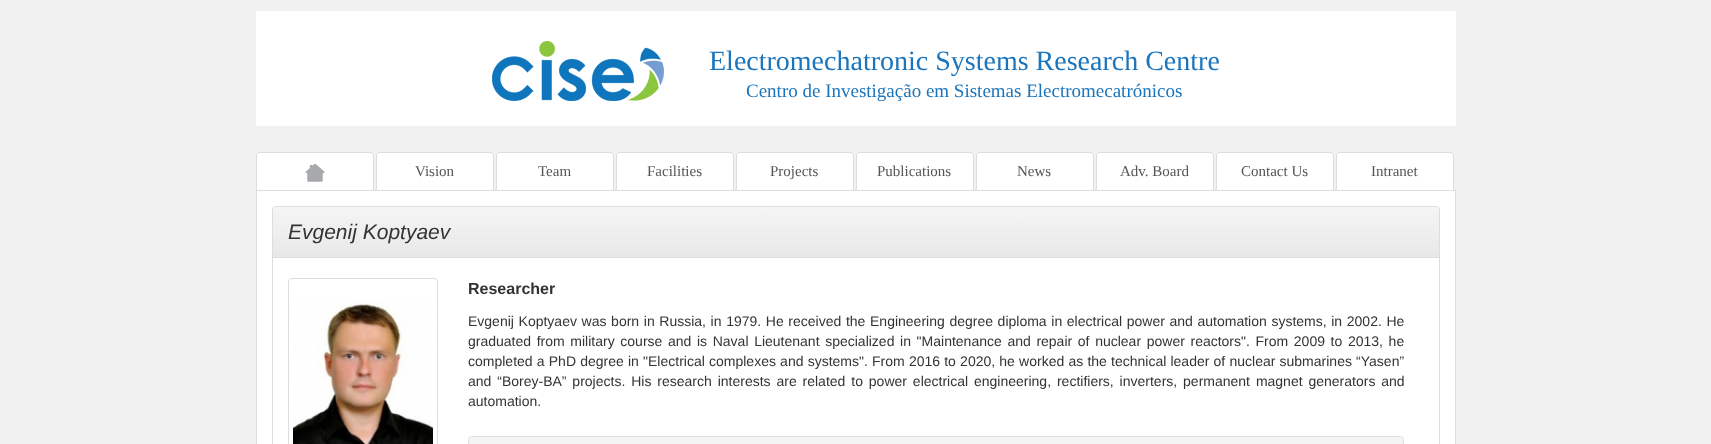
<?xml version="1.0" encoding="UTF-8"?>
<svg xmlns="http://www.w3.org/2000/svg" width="1711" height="444">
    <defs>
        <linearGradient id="g1" gradientUnits="userSpaceOnUse" x1="856" y1="207" x2="856" y2="257"><stop offset="0" stop-color="#F5F5F5"/><stop offset="1" stop-color="#E8E8E8"/></linearGradient>
        <linearGradient id="g2" gradientUnits="userSpaceOnUse" x1="936" y1="437" x2="936" y2="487"><stop offset="0" stop-color="#F5F5F5"/><stop offset="1" stop-color="#E8E8E8"/></linearGradient>
    </defs>
    <rect width="100%" height="100%" fill="#F1F1F1"/>
    <rect x="256" y="11" width="1200" height="115" fill="#FFFFFF"/>
    <image x="492" y="41" width="172" height="60" href="img_01.png"/>
    <text x="709" y="70" font-family="Liberation Serif" font-size="28" fill="#1B75BC">Electromechatronic Systems Research Centre</text>
    <text x="746" y="97" font-family="Liberation Serif" font-size="19" fill="#1B75BC">Centro de Investigação em Sistemas Electromecatrónicos</text>
    <rect x="374" y="190" width="1082" height="1" fill="#DDDDDD"/>
    <path d="M 260 152.5 H 370 C 372 152.5 373.5 154 373.5 156 V 190.5 H 256.5 V 156 C 256.5 154 258 152.5 260 152.5 Z" fill="#FFFFFF" stroke="#DDDDDD"/>
    <image x="305" y="163" width="20" height="19" href="img_02.png"/>
    <path d="M 380 152.5 H 490 C 492 152.5 493.5 154 493.5 156 V 190.5 H 376.5 V 156 C 376.5 154 378 152.5 380 152.5 Z" fill="#FFFFFF" stroke="#DDDDDD"/>
    <text x="415" y="176" font-family="Liberation Serif" font-size="15" fill="#555555">Vision</text>
    <path d="M 500 152.5 H 610 C 612 152.5 613.5 154 613.5 156 V 190.5 H 496.5 V 156 C 496.5 154 498 152.5 500 152.5 Z" fill="#FFFFFF" stroke="#DDDDDD"/>
    <text x="538" y="176" font-family="Liberation Serif" font-size="15" fill="#555555">Team</text>
    <path d="M 620 152.5 H 730 C 732 152.5 733.5 154 733.5 156 V 190.5 H 616.5 V 156 C 616.5 154 618 152.5 620 152.5 Z" fill="#FFFFFF" stroke="#DDDDDD"/>
    <text x="647" y="176" font-family="Liberation Serif" font-size="15" fill="#555555">Facilities</text>
    <path d="M 740 152.5 H 850 C 852 152.5 853.5 154 853.5 156 V 190.5 H 736.5 V 156 C 736.5 154 738 152.5 740 152.5 Z" fill="#FFFFFF" stroke="#DDDDDD"/>
    <text x="770" y="176" font-family="Liberation Serif" font-size="15" fill="#555555">Projects</text>
    <path d="M 860 152.5 H 970 C 972 152.5 973.5 154 973.5 156 V 190.5 H 856.5 V 156 C 856.5 154 858 152.5 860 152.5 Z" fill="#FFFFFF" stroke="#DDDDDD"/>
    <text x="877" y="176" font-family="Liberation Serif" font-size="15" fill="#555555">Publications</text>
    <path d="M 980 152.5 H 1090 C 1092 152.5 1093.5 154 1093.5 156 V 190.5 H 976.5 V 156 C 976.5 154 978 152.5 980 152.5 Z" fill="#FFFFFF" stroke="#DDDDDD"/>
    <text x="1017" y="176" font-family="Liberation Serif" font-size="15" fill="#555555">News</text>
    <path d="M 1100 152.5 H 1210 C 1212 152.5 1213.5 154 1213.5 156 V 190.5 H 1096.5 V 156 C 1096.5 154 1098 152.5 1100 152.5 Z" fill="#FFFFFF" stroke="#DDDDDD"/>
    <text x="1120" y="176" font-family="Liberation Serif" font-size="15" fill="#555555">Adv. Board</text>
    <path d="M 1220 152.5 H 1330 C 1332 152.5 1333.5 154 1333.5 156 V 190.5 H 1216.5 V 156 C 1216.5 154 1218 152.5 1220 152.5 Z" fill="#FFFFFF" stroke="#DDDDDD"/>
    <text x="1241" y="176" font-family="Liberation Serif" font-size="15" fill="#555555">Contact Us</text>
    <path d="M 1340 152.5 H 1450 C 1452 152.5 1453.5 154 1453.5 156 V 190.5 H 1336.5 V 156 C 1336.5 154 1338 152.5 1340 152.5 Z" fill="#FFFFFF" stroke="#DDDDDD"/>
    <text x="1371" y="176" font-family="Liberation Serif" font-size="15" fill="#555555">Intranet</text>
    <rect x="257" y="191" width="1198" height="253" fill="#FFFFFF"/>
    <rect x="1455" y="191" width="1" height="253" fill="#DDDDDD"/>
    <rect x="256" y="191" width="1" height="253" fill="#DDDDDD"/>
    <rect x="272.5" y="206.5" width="1167" height="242" rx="3.5" fill="none" stroke="#DDDDDD"/>
    <path d="M 276 207 H 1436 C 1437.5 207 1439 208.5 1439 210 V 257 H 273 V 210 C 273 208.5 274.5 207 276 207 Z" fill="url(#g1)"/>
    <rect x="273" y="257" width="1166" height="1" fill="#DDDDDD"/>
    <text x="288" y="239" font-family="Liberation Sans" font-size="21" font-style="italic" fill="#333333">Evgenij Koptyaev</text>
    <rect x="288.5" y="278.5" width="149" height="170" rx="3.5" fill="none" stroke="#DDDDDD"/>
    <image x="293" y="300" width="140" height="144" href="img_03.png"/>
    <text x="468" y="294" font-family="Liberation Sans" font-size="16" font-weight="700" fill="#333333">Researcher</text>
    <text font-family="Liberation Sans" font-size="14" fill="#333333">
        <tspan x="468" y="326" word-spacing="0.75">Evgenij Koptyaev was born in Russia, in 1979. He received the Engineering degree diploma in electrical power and automation systems, in 2002. He</tspan>
        <tspan x="468" y="346" word-spacing="1.75">graduated from military course and is Naval Lieutenant specialized in "Maintenance and repair of nuclear power reactors". From 2009 to 2013, he</tspan>
        <tspan x="468" y="366" word-spacing="0.3">completed a PhD degree in "Electrical complexes and systems". From 2016 to 2020, he worked as the technical leader of nuclear submarines “Yasen”</tspan>
        <tspan x="468" y="386" word-spacing="2">and “Borey-BA” projects. His research interests are related to power electrical engineering, rectifiers, inverters, permanent magnet generators and</tspan>
        <tspan x="468" y="406">automation.</tspan>
    </text>
    <rect x="468.5" y="436.5" width="935" height="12" rx="3.5" fill="none" stroke="#DDDDDD"/>
    <rect x="469" y="437" width="934" height="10" rx="3" fill="url(#g2)"/>
</svg>
